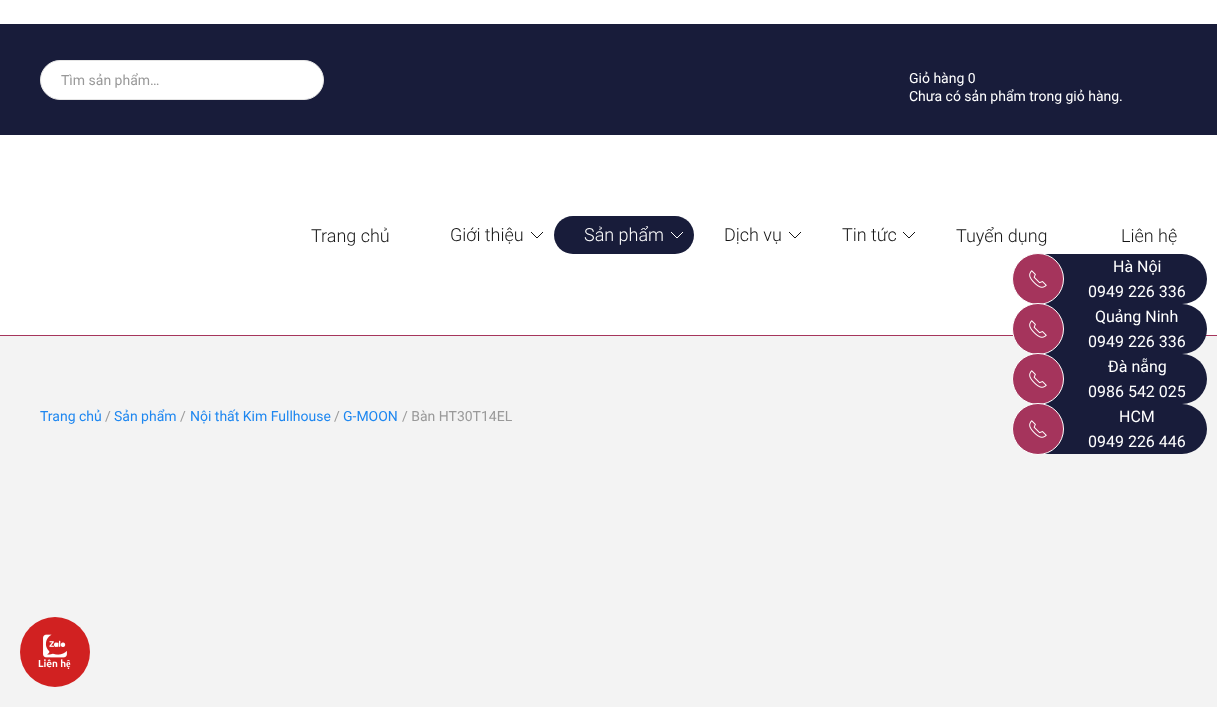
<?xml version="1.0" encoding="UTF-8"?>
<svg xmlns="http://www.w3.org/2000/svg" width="1217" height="707">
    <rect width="100%" height="100%" fill="#FFFFFF"/>
    <rect x="0" y="24" width="1217" height="111" fill="#181C3A"/>
    <rect x="40.5" y="60.5" width="283" height="39" rx="19.5" fill="#FFFFFF" stroke="#E5E5E5"/>
    <text x="61" y="85" font-family="Roboto" font-size="14" fill="#999999">Tìm sản phẩm…</text>
    <text font-family="Roboto" font-size="14" fill="#FFFFFF">
        <tspan x="909" y="83">Giỏ hàng 0</tspan>
        <tspan x="909" y="101">Chưa có sản phẩm trong giỏ hàng.</tspan>
    </text>
    <rect x="0" y="335" width="1217" height="1" fill="#A6355C"/>
    <text x="311" y="242" font-family="Roboto" font-size="18" font-weight="300" fill="#161616">Trang chủ</text>
    <text x="450" y="241" font-family="Roboto" font-size="18" font-weight="300" fill="#161616">Giới thiệu</text>
    <path d="M 543 232 L 537 238 L 531 232" fill="none" stroke="#161616"/>
    <rect x="554" y="216" width="140" height="38" rx="19" fill="#181C3A"/>
    <text x="584" y="241" font-family="Roboto" font-size="18" font-weight="300" fill="#FFFFFF">Sản phẩm</text>
    <path d="M 683 232 L 677 238 L 671 232" fill="none" stroke="#FFFFFF"/>
    <text x="724" y="241" font-family="Roboto" font-size="18" font-weight="300" fill="#161616">Dịch vụ</text>
    <path d="M 801 232 L 795 238 L 789 232" fill="none" stroke="#161616"/>
    <text x="842" y="241" font-family="Roboto" font-size="18" font-weight="300" fill="#161616">Tin tức</text>
    <path d="M 915 232 L 909 238 L 903 232" fill="none" stroke="#161616"/>
    <text x="956" y="242" font-family="Roboto" font-size="18" font-weight="300" fill="#161616">Tuyển dụng</text>
    <text x="1121" y="242" font-family="Roboto" font-size="18" font-weight="300" fill="#161616">Liên hệ</text>
    <rect x="0" y="336" width="1217" height="371" fill="#F3F3F3"/>
    <text x="40" y="421" font-family="Roboto" font-size="14" fill="#1E87F0">Trang chủ</text>
    <text x="105" y="421" font-family="Roboto" font-size="14" fill="#999999">/</text>
    <text x="114" y="421" font-family="Roboto" font-size="14" fill="#1E87F0">Sản phẩm</text>
    <text x="180" y="421" font-family="Roboto" font-size="14" fill="#999999">/</text>
    <text x="190" y="421" font-family="Roboto" font-size="14" fill="#1E87F0">Nội thất Kim Fullhouse</text>
    <text x="334" y="421" font-family="Roboto" font-size="14" fill="#999999">/</text>
    <text x="343" y="421" font-family="Roboto" font-size="14" fill="#1E87F0">G-MOON</text>
    <text x="402" y="421" font-family="Roboto" font-size="14" fill="#999999">/ Bàn HT30T14EL</text>
    <rect x="1017" y="254" width="190" height="50" rx="25" fill="#181C3A"/>
    <circle cx="1038" cy="279" r="25.5" fill="#A5345C" stroke="#FFFFFF"/>
    <image x="1029" y="270" width="18" height="18" href="img_01.png"/>
    <text x="1113" y="272" font-family="Roboto" font-size="16" fill="#FFFFFF">Hà Nội</text>
    <text x="1088" y="297" font-family="Roboto" font-size="16" fill="#FFFFFF">0949 226 336</text>
    <rect x="1017" y="304" width="190" height="50" rx="25" fill="#181C3A"/>
    <circle cx="1038" cy="329" r="25.5" fill="#A5345C" stroke="#FFFFFF"/>
    <image x="1029" y="320" width="18" height="18" href="img_01.png"/>
    <text x="1095" y="322" font-family="Roboto" font-size="16" fill="#FFFFFF">Quảng Ninh</text>
    <text x="1088" y="347" font-family="Roboto" font-size="16" fill="#FFFFFF">0949 226 336</text>
    <rect x="1017" y="354" width="190" height="50" rx="25" fill="#181C3A"/>
    <circle cx="1038" cy="379" r="25.5" fill="#A5345C" stroke="#FFFFFF"/>
    <image x="1029" y="370" width="18" height="18" href="img_01.png"/>
    <text x="1108" y="372" font-family="Roboto" font-size="16" fill="#FFFFFF">Đà nẵng</text>
    <text x="1088" y="397" font-family="Roboto" font-size="16" fill="#FFFFFF">0986 542 025</text>
    <rect x="1017" y="404" width="190" height="50" rx="25" fill="#181C3A"/>
    <circle cx="1038" cy="429" r="25.5" fill="#A5345C" stroke="#FFFFFF"/>
    <image x="1029" y="420" width="18" height="18" href="img_01.png"/>
    <text x="1119" y="422" font-family="Roboto" font-size="16" fill="#FFFFFF">HCM</text>
    <text x="1088" y="447" font-family="Roboto" font-size="16" fill="#FFFFFF">0949 226 446</text>
    <circle cx="55" cy="652" r="35" fill="#D12121"/>
    <image x="43" y="634" width="24" height="24" href="img_02.png"/>
    <text x="38" y="667" font-family="Ubuntu" font-size="10" font-weight="700" fill="#FFFFFF">Liên hệ</text>
</svg>
